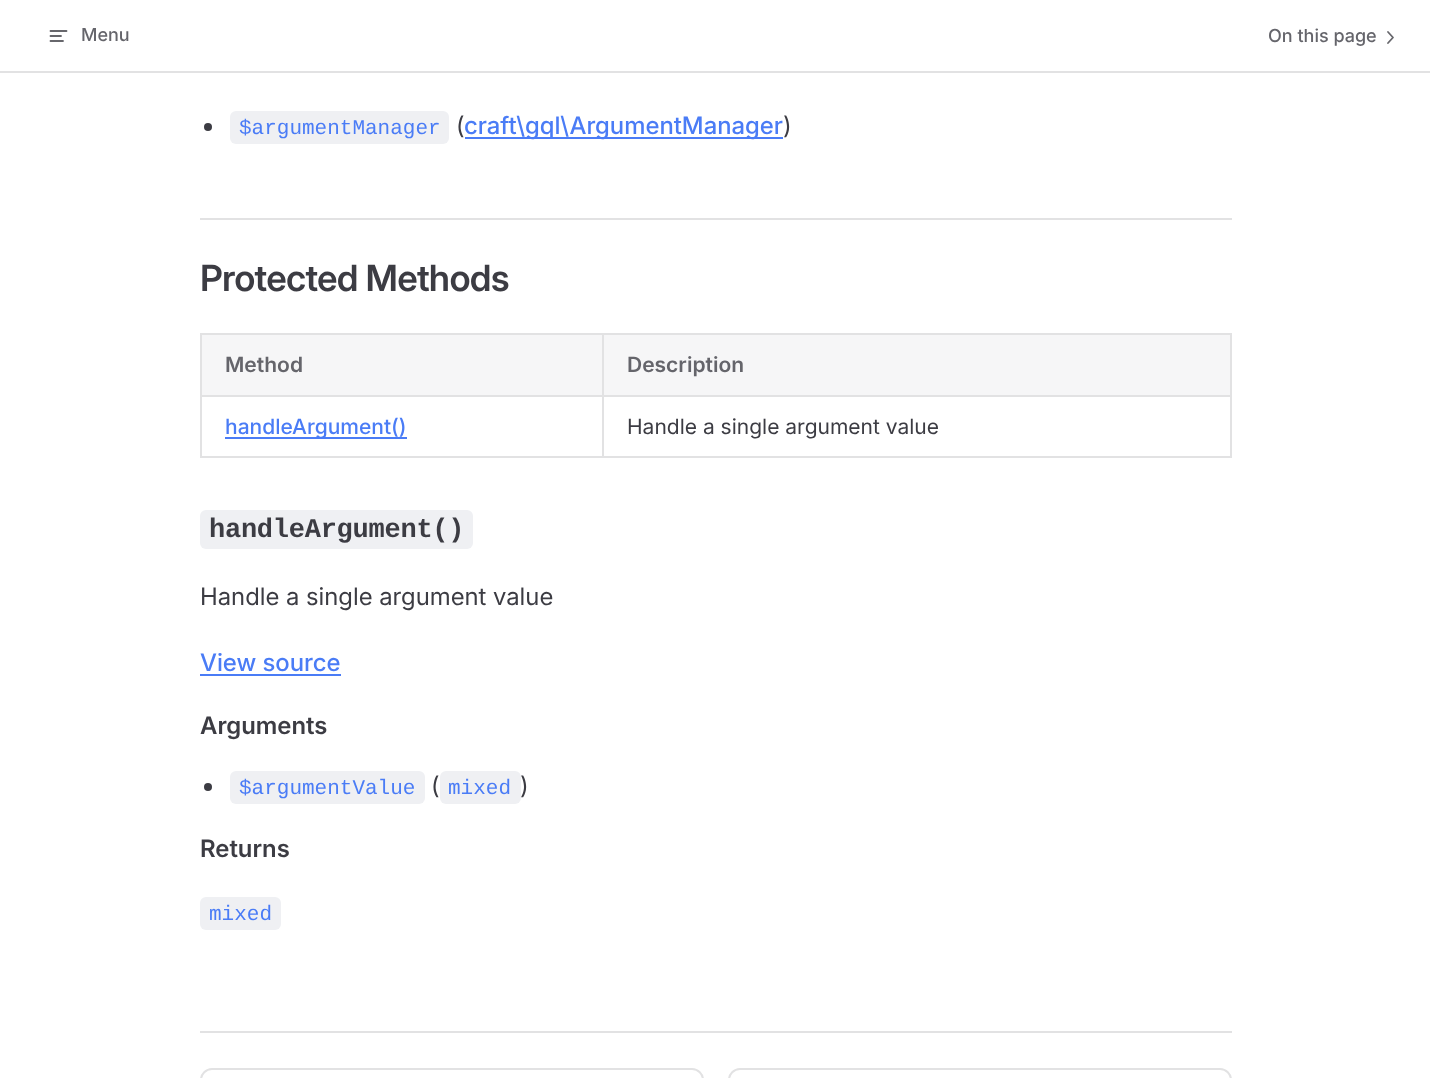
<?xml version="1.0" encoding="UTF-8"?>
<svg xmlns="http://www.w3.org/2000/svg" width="1430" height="1078">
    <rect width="100%" height="100%" fill="#FFFFFF"/>
    <rect x="0" y="71" width="1430" height="2" fill="#E2E2E3"/>
    <path d="M 66.5 31 H 50.5 M 61 36 H 50.5 M 63 41 H 50.5" fill="none" stroke="#67676C" stroke-width="1.8" stroke-linecap="round" stroke-linejoin="round"/>
    <text x="81" y="41" font-family="'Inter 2'" font-size="18" font-weight="500" fill="#65656B">Menu</text>
    <text x="1268" y="42" font-family="'Inter 2'" font-size="18" font-weight="500" fill="#65656B">On this page</text>
    <path d="M 1388 43 L 1393 37.5 L 1388 32" fill="none" stroke="#67676C" stroke-width="1.8" stroke-linecap="round" stroke-linejoin="round"/>
    <circle cx="208" cy="127" r="4" fill="#3C3C43"/>
    <rect x="230" y="111" width="219" height="33" rx="6" fill="#EFF0F3"/>
    <text x="239" y="134" font-family="Liberation Mono" font-size="21" fill="#4A7CF6">$argumentManager</text>
    <text x="456" y="134" font-family="Inter" font-size="24" fill="#3C3C43">(</text>
    <rect x="465" y="137" width="318" height="2" fill="#4A7CF6"/>
    <text x="464" y="134" font-family="Inter" font-size="24" font-weight="500" fill="#4A7CF6">craft\gql\ArgumentManager</text>
    <text x="783" y="134" font-family="Inter" font-size="24" fill="#3C3C43">)</text>
    <rect x="200" y="218" width="1032" height="2" fill="#E2E2E3"/>
    <text x="200" y="291" font-family="'Inter 2'" font-size="36" font-weight="600" letter-spacing="-0.75" fill="#3C3C43">Protected Methods</text>
    <rect x="200" y="333" width="1032" height="2" fill="#E2E2E3"/>
    <rect x="202" y="335" width="400" height="60" fill="#F6F6F7"/>
    <text x="225" y="372" font-family="Inter" font-size="21" font-weight="600" fill="#65656B">Method</text>
    <rect x="604" y="335" width="626" height="60" fill="#F6F6F7"/>
    <text x="627" y="372" font-family="Inter" font-size="21" font-weight="600" fill="#65656B">Description</text>
    <rect x="200" y="395" width="1032" height="2" fill="#E2E2E3"/>
    <rect x="1230" y="333" width="2" height="125" fill="#E2E2E3"/>
    <rect x="602" y="456" width="630" height="2" fill="#E2E2E3"/>
    <rect x="602" y="333" width="2" height="125" fill="#E2E2E3"/>
    <rect x="200" y="456" width="403" height="2" fill="#E2E2E3"/>
    <rect x="200" y="333" width="2" height="125" fill="#E2E2E3"/>
    <rect x="225" y="437" width="182" height="2" fill="#4A7CF6"/>
    <text x="225" y="434" font-family="'Inter 2'" font-size="21" font-weight="500" fill="#4A7CF6">handleArgument()</text>
    <text x="627" y="434" font-family="'Inter 2'" font-size="21" fill="#3C3C43">Handle a single argument value</text>
    <rect x="200" y="510" width="273" height="39" rx="6" fill="#EFF0F3"/>
    <text x="209" y="537" font-family="Liberation Mono" font-size="27" font-weight="700" letter-spacing="-0.25" fill="#3C3C43">handleArgument()</text>
    <text x="200" y="605" font-family="Inter" font-size="24" fill="#3C3C43">Handle a single argument value</text>
    <text x="200" y="671" font-family="Inter" font-size="24" font-weight="500" fill="#4A7CF6">View source</text>
    <rect x="200" y="674" width="141" height="2" fill="#4A7CF6"/>
    <text x="200" y="734" font-family="'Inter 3'" font-size="24" font-weight="600" fill="#3C3C43">Arguments</text>
    <circle cx="208" cy="787" r="4" fill="#3C3C43"/>
    <rect x="230" y="771" width="195" height="33" rx="6" fill="#EFF0F3"/>
    <text x="239" y="794" font-family="Liberation Mono" font-size="21" fill="#4A7CF6">$argumentValue</text>
    <text x="431" y="794" font-family="Inter" font-size="24" fill="#3C3C43">(</text>
    <rect x="440" y="771" width="81" height="33" rx="6" fill="#EFF0F3"/>
    <text x="448" y="794" font-family="Liberation Mono" font-size="21" fill="#4A7CF6">mixed</text>
    <text x="520" y="794" font-family="Inter" font-size="24" fill="#3C3C43">)</text>
    <text x="200" y="857" font-family="'Inter 3'" font-size="24" font-weight="600" fill="#3C3C43">Returns</text>
    <rect x="200" y="897" width="81" height="33" rx="6" fill="#EFF0F3"/>
    <text x="209" y="920" font-family="Liberation Mono" font-size="21" fill="#4A7CF6">mixed</text>
    <rect x="200" y="1031" width="1032" height="2" fill="#E2E2E3"/>
    <rect x="201" y="1069" width="502" height="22" rx="11" fill="none" stroke="#E2E2E3" stroke-width="2"/>
    <rect x="729" y="1069" width="502" height="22" rx="11" fill="none" stroke="#E2E2E3" stroke-width="2"/>
</svg>
